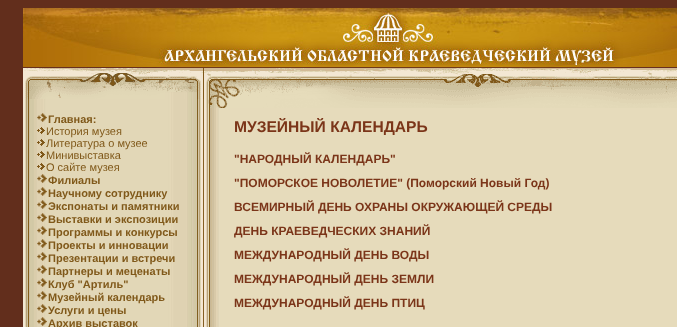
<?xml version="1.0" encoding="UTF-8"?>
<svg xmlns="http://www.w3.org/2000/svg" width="677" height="327">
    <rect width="100%" height="100%" fill="#622E1C"/>
    <image x="23" y="8" width="654" height="60" href="img_01.png"/>
    <rect x="23" y="68" width="2" height="259" fill="#F3E7D3"/>
    <image x="25" y="99" width="179" height="9" href="img_02.png"/>
    <image x="24" y="68" width="180" height="31" href="img_03.png"/>
    <image x="204" y="68" width="473" height="40" href="img_04.png"/>
    <image x="25" y="108" width="179" height="219" href="img_05.png"/>
    <image x="37" y="113" width="10" height="9" href="img_06.png"/>
    <text x="48" y="123" font-family="Liberation Sans" font-size="11" font-weight="700" fill="#80591A">Главная:</text>
    <image x="37" y="127" width="8" height="7" href="img_07.png"/>
    <text x="46" y="135" font-family="Liberation Sans" font-size="11" fill="#80591A">История музея</text>
    <image x="37" y="139" width="8" height="7" href="img_07.png"/>
    <text x="46" y="147" font-family="Liberation Sans" font-size="11" fill="#80591A">Литература о музее</text>
    <image x="37" y="151" width="8" height="7" href="img_07.png"/>
    <text x="46" y="159" font-family="Liberation Sans" font-size="11" fill="#80591A">Минивыставка</text>
    <image x="37" y="163" width="8" height="7" href="img_07.png"/>
    <text x="46" y="171" font-family="Liberation Sans" font-size="11" fill="#80591A">О сайте музея</text>
    <image x="37" y="174" width="10" height="9" href="img_06.png"/>
    <text x="48" y="184" font-family="Liberation Sans" font-size="11" font-weight="700" fill="#80591A">Филиалы</text>
    <image x="37" y="187" width="10" height="9" href="img_06.png"/>
    <text x="48" y="197" font-family="Liberation Sans" font-size="11" font-weight="700" fill="#80591A">Научному сотруднику</text>
    <image x="37" y="200" width="10" height="9" href="img_06.png"/>
    <text x="48" y="210" font-family="Liberation Sans" font-size="11" font-weight="700" fill="#80591A">Экспонаты и памятники</text>
    <image x="37" y="213" width="10" height="9" href="img_06.png"/>
    <text x="48" y="223" font-family="Liberation Sans" font-size="11" font-weight="700" fill="#80591A">Выставки и экспозиции</text>
    <image x="37" y="226" width="10" height="9" href="img_06.png"/>
    <text x="48" y="236" font-family="Liberation Sans" font-size="11" font-weight="700" fill="#80591A">Программы и конкурсы</text>
    <image x="37" y="239" width="10" height="9" href="img_06.png"/>
    <text x="48" y="249" font-family="Liberation Sans" font-size="11" font-weight="700" fill="#80591A">Проекты и инновации</text>
    <image x="37" y="252" width="10" height="9" href="img_06.png"/>
    <text x="48" y="262" font-family="Liberation Sans" font-size="11" font-weight="700" fill="#80591A">Презентации и встречи</text>
    <image x="37" y="265" width="10" height="9" href="img_06.png"/>
    <text x="48" y="275" font-family="Liberation Sans" font-size="11" font-weight="700" fill="#80591A">Партнеры и меценаты</text>
    <image x="37" y="278" width="10" height="9" href="img_06.png"/>
    <text x="48" y="288" font-family="Liberation Sans" font-size="11" font-weight="700" fill="#80591A">Клуб "Артиль"</text>
    <image x="37" y="291" width="10" height="9" href="img_08.png"/>
    <text x="48" y="301" font-family="Liberation Sans" font-size="11" font-weight="700" fill="#80591A">Музейный календарь</text>
    <image x="37" y="304" width="10" height="9" href="img_06.png"/>
    <text x="48" y="314" font-family="Liberation Sans" font-size="11" font-weight="700" fill="#80591A">Услуги и цены</text>
    <image x="37" y="317" width="10" height="9" href="img_06.png"/>
    <text x="48" y="327" font-family="Liberation Sans" font-size="11" font-weight="700" fill="#80591A">Архив выставок</text>
    <rect x="204" y="108" width="2" height="219" fill="#F3E7D3"/>
    <image x="206" y="108" width="471" height="219" href="img_09.png"/>
    <text x="234" y="132" font-family="Liberation Sans" font-size="15.6" font-weight="700" fill="#7B3519">МУЗЕЙНЫЙ КАЛЕНДАРЬ</text>
    <text x="234" y="163" font-family="Liberation Sans" font-size="12" font-weight="700" fill="#7B3519">"НАРОДНЫЙ КАЛЕНДАРЬ"</text>
    <text x="234" y="187" font-family="Liberation Sans" font-size="12" font-weight="700" fill="#7B3519">"ПОМОРСКОЕ НОВОЛЕТИЕ" (Поморский Новый Год)</text>
    <text x="234" y="211" font-family="Liberation Sans" font-size="12" font-weight="700" fill="#7B3519">ВСЕМИРНЫЙ ДЕНЬ ОХРАНЫ ОКРУЖАЮЩЕЙ СРЕДЫ</text>
    <text x="234" y="235" font-family="Liberation Sans" font-size="12" font-weight="700" fill="#7B3519">ДЕНЬ КРАЕВЕДЧЕСКИХ ЗНАНИЙ</text>
    <text x="234" y="259" font-family="Liberation Sans" font-size="12" font-weight="700" fill="#7B3519">МЕЖДУНАРОДНЫЙ ДЕНЬ ВОДЫ</text>
    <text x="234" y="283" font-family="Liberation Sans" font-size="12" font-weight="700" fill="#7B3519">МЕЖДУНАРОДНЫЙ ДЕНЬ ЗЕМЛИ</text>
    <text x="234" y="307" font-family="Liberation Sans" font-size="12" font-weight="700" fill="#7B3519">МЕЖДУНАРОДНЫЙ ДЕНЬ ПТИЦ</text>
</svg>
